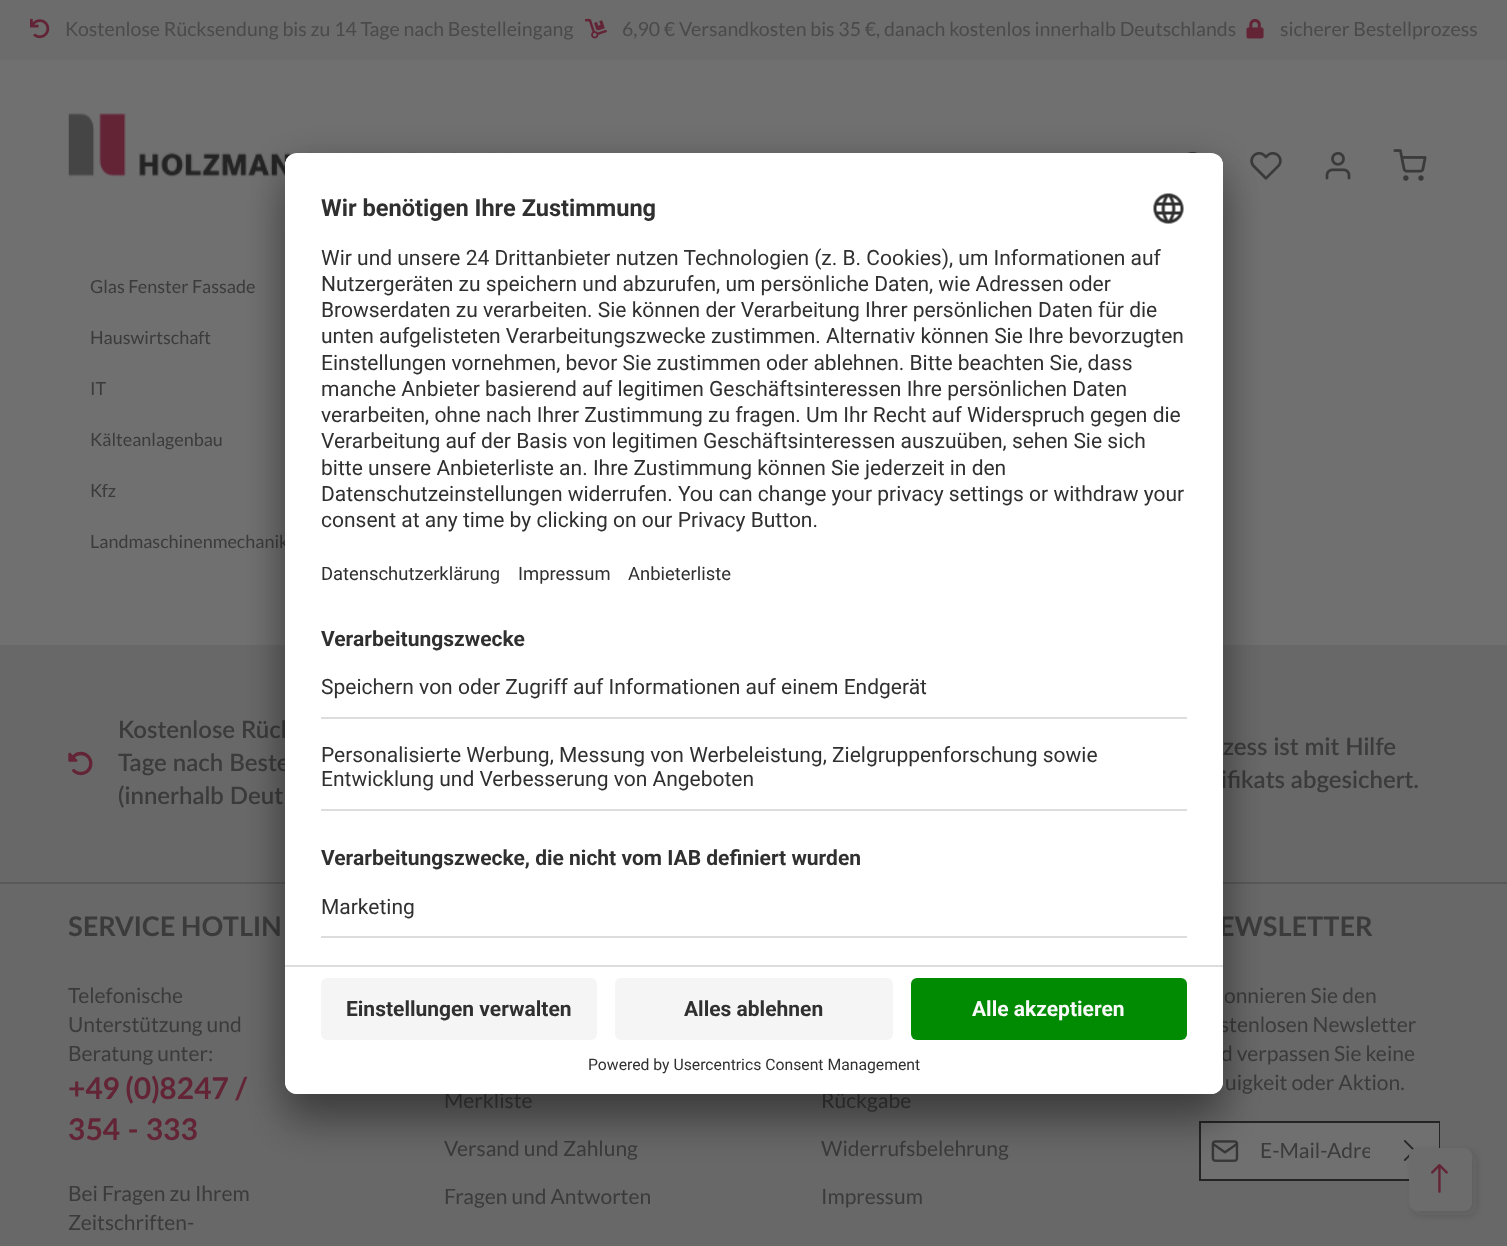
<?xml version="1.0" encoding="UTF-8"?>
<svg xmlns="http://www.w3.org/2000/svg" width="1507" height="1246">
    <defs>
        <clipPath id="clip1"><rect x="1260" y="1137" width="110" height="26"/></clipPath>
        <filter id="blur1" x="-50%" y="-200%" width="200%" height="500%"><feGaussianBlur stdDeviation="21"/></filter>
        <filter id="blur2" x="-50%" y="-200%" width="200%" height="500%"><feGaussianBlur stdDeviation="19.5"/></filter>
        <clipPath id="clip2"><rect x="285" y="153" width="938" height="941" rx="12"/></clipPath>
        <clipPath id="clip3"><path d="M 297 153 H 1211 C 1217.5 153 1223 158.5 1223 165 V 965 H 285 V 165 C 285 158.5 290.5 153 297 153 Z"/></clipPath>
        <filter id="blur3" x="-50%" y="-200%" width="200%" height="500%"><feGaussianBlur stdDeviation="4"/></filter>
    </defs>
    <rect width="100%" height="100%" fill="#707070"/>
    <rect x="0" y="0" width="1507" height="60" fill="#6C6C6C"/>
    <image x="30" y="18" width="20" height="21" href="img_01.png"/>
    <text x="65" y="36" font-family="Lato" font-size="19.5" fill="#4A4A4A">Kostenlose Rücksendung bis zu 14 Tage nach Bestelleingang</text>
    <image x="585" y="18" width="22" height="21" href="img_02.png"/>
    <text x="622" y="36" font-family="Lato" font-size="19.5" fill="#4A4A4A">6,90 € Versandkosten bis 35 €, danach kostenlos innerhalb Deutschlands</text>
    <image x="1246" y="18" width="18" height="21" href="img_03.png"/>
    <text x="1280" y="36" font-family="Lato" font-size="19.5" fill="#4A4A4A">sicherer Bestellprozess</text>
    <image x="68" y="113" width="442" height="64" href="img_04.png"/>
    <image x="1187" y="151" width="11" height="2" href="img_05.png"/>
    <image x="1250" y="151" width="32" height="29" href="img_06.png"/>
    <image x="1325" y="152" width="26" height="28" href="img_07.png"/>
    <image x="1393" y="149" width="34" height="32" href="img_08.png"/>
    <text x="90" y="293" font-family="Lato" font-size="18" fill="#3B3B3B">Glas Fenster Fassade</text>
    <text x="90" y="344" font-family="Lato" font-size="18" fill="#3B3B3B">Hauswirtschaft</text>
    <text x="90" y="395" font-family="Lato" font-size="18" fill="#3B3B3B">IT</text>
    <text x="90" y="446" font-family="Lato" font-size="18" fill="#3B3B3B">Kälteanlagenbau</text>
    <text x="90" y="497" font-family="Lato" font-size="18" fill="#3B3B3B">Kfz</text>
    <text x="90" y="548" font-family="Lato" font-size="18" fill="#3B3B3B">Landmaschinenmechanik</text>
    <rect x="0" y="645" width="1507" height="601" fill="#686868"/>
    <rect x="0" y="882" width="1507" height="2" fill="#595959"/>
    <image x="68" y="751" width="25" height="25" href="img_09.png"/>
    <text font-family="Lato" font-size="24" font-weight="600" fill="#3B3B3B">
        <tspan x="118" y="738">Kostenlose Rück</tspan>
        <tspan x="118" y="771">Tage nach Beste</tspan>
        <tspan x="118" y="804">(innerhalb Deut</tspan>
    </text>
    <text x="1223" y="755" font-family="Lato" font-size="24" font-weight="600" fill="#3B3B3B">zess ist mit Hilfe</text>
    <text x="1221" y="788" font-family="Lato" font-size="24" font-weight="600" fill="#3B3B3B">ifikats abgesichert.</text>
    <text x="68" y="936" word-spacing="-1" font-family="Lato" font-size="27" font-weight="700" fill="#3B3B3B">SERVICE HOTLIN</text>
    <text font-family="Lato" font-size="21" fill="#3B3B3B">
        <tspan x="68" y="1003">Telefonische</tspan>
        <tspan x="68" y="1032">Unterstützung und</tspan>
        <tspan x="68" y="1061">Beratung unter:</tspan>
    </text>
    <text font-family="Lato" font-size="30" font-weight="700" fill="#632436">
        <tspan x="68" y="1099" word-spacing="-2">+49 (0)8247 /</tspan>
        <tspan x="68" y="1140">354 - 333</tspan>
    </text>
    <text font-family="Lato" font-size="21" fill="#3B3B3B">
        <tspan x="68" y="1201">Bei Fragen zu Ihrem</tspan>
        <tspan x="68" y="1230">Zeitschriften-</tspan>
    </text>
    <text x="444" y="1108" font-family="Lato" font-size="21" fill="#3B3B3B">Merkliste</text>
    <text x="444" y="1156" font-family="Lato" font-size="21" fill="#3B3B3B">Versand und Zahlung</text>
    <text x="444" y="1204" font-family="Lato" font-size="21" fill="#3B3B3B">Fragen und Antworten</text>
    <text x="821" y="1108" font-family="Lato" font-size="21" fill="#3B3B3B">Rückgabe</text>
    <text x="821" y="1156" font-family="Lato" font-size="21" fill="#3B3B3B">Widerrufsbelehrung</text>
    <text x="821" y="1204" font-family="Lato" font-size="21" fill="#3B3B3B">Impressum</text>
    <text x="1219" y="936" font-family="Lato" font-size="27" font-weight="700" fill="#3B3B3B">EWSLETTER</text>
    <text x="1224" y="1003" font-family="Lato" font-size="21" fill="#3B3B3B">onnieren Sie den</text>
    <text x="1220" y="1032" font-family="Lato" font-size="21" fill="#3B3B3B">stenlosen Newsletter</text>
    <text x="1221" y="1061" font-family="Lato" font-size="21" fill="#3B3B3B">d verpassen Sie keine</text>
    <text x="1225" y="1090" font-family="Lato" font-size="21" fill="#3B3B3B">uigkeit oder Aktion.</text>
    <rect x="1201" y="1123" width="238" height="56" fill="#707070"/>
    <image x="1211" y="1140" width="28" height="22" href="img_10.png"/>
    <rect x="1199" y="1121" width="241" height="2" fill="#242424"/>
    <rect x="1199" y="1179" width="210" height="2" fill="#242424"/>
    <rect x="1199" y="1121" width="2" height="60" fill="#242424"/>
    <g clip-path="url(#clip1)">
        <text x="1260" y="1158" font-family="Lato" font-size="21" fill="#3B3B3B">E-Mail-Adre</text>
    </g>
    <rect x="1439" y="1121" width="1" height="27" fill="#242424"/>
    <image x="1403" y="1140" width="11" height="21" href="img_11.png"/>
    <rect x="285" y="183" width="938" height="941" rx="12" fill="#000000" fill-opacity="0.3" filter="url(#blur1)"/>
    <rect x="285" y="161" width="938" height="940" rx="12" fill="#000000" fill-opacity="0.22" filter="url(#blur2)"/>
    <rect x="285" y="153" width="938" height="941" rx="12" fill="#FFFFFF"/>
    <g clip-path="url(#clip2)">
        <g clip-path="url(#clip3)">
            <rect x="285" y="155" width="938" height="810" fill="#FFFFFF"/>
            <rect x="285" y="155" width="938" height="454" fill="#FFFFFF"/>
        </g>
    </g>
    <text x="321" y="216" font-family="Roboto" font-size="23.6" font-weight="700" fill="#303030">Wir benötigen Ihre Zustimmung</text>
    <image x="1153" y="193" width="31" height="31" href="img_12.png"/>
    <text font-family="Roboto" font-size="21" fill="#303030">
        <tspan x="321" y="265">Wir und unsere 24 Drittanbieter nutzen Technologien (z. B. Cookies), um Informationen auf</tspan>
        <tspan x="321" y="291">Nutzergeräten zu speichern und abzurufen, um persönliche Daten, wie Adressen oder</tspan>
        <tspan x="321" y="317">Browserdaten zu verarbeiten. Sie können der Verarbeitung Ihrer persönlichen Daten für die</tspan>
        <tspan x="321" y="343">unten aufgelisteten Verarbeitungszwecke zustimmen. Alternativ können Sie Ihre bevorzugten</tspan>
        <tspan x="321" y="370">Einstellungen vornehmen, bevor Sie zustimmen oder ablehnen. Bitte beachten Sie, dass</tspan>
        <tspan x="321" y="396">manche Anbieter basierend auf legitimen Geschäftsinteressen Ihre persönlichen Daten</tspan>
        <tspan x="321" y="422">verarbeiten, ohne nach Ihrer Zustimmung zu fragen. Um Ihr Recht auf Widerspruch gegen die</tspan>
        <tspan x="321" y="448">Verarbeitung auf der Basis von legitimen Geschäftsinteressen auszuüben, sehen Sie sich</tspan>
        <tspan x="321" y="475">bitte unsere Anbieterliste an. Ihre Zustimmung können Sie jederzeit in den</tspan>
        <tspan x="321" y="501">Datenschutzeinstellungen widerrufen. You can change your privacy settings or withdraw your</tspan>
        <tspan x="321" y="527">consent at any time by clicking on our Privacy Button.</tspan>
    </text>
    <text x="321" y="580" font-family="Roboto" font-size="18.4" fill="#303030">Datenschutzerklärung</text>
    <text x="518" y="580" font-family="Roboto" font-size="18.4" fill="#303030">Impressum</text>
    <text x="628" y="580" font-family="Roboto" font-size="18.4" fill="#303030">Anbieterliste</text>
    <text x="321" y="646" font-family="Roboto" font-size="21" font-weight="700" fill="#303030">Verarbeitungszwecke</text>
    <rect x="321" y="717" width="866" height="2" fill="#DDDDDD"/>
    <text x="321" y="694" font-family="Roboto" font-size="21" fill="#303030">Speichern von oder Zugriff auf Informationen auf einem Endgerät</text>
    <rect x="321" y="809" width="866" height="2" fill="#DDDDDD"/>
    <text font-family="Roboto" font-size="21" fill="#303030">
        <tspan x="321" y="762">Personalisierte Werbung, Messung von Werbeleistung, Zielgruppenforschung sowie</tspan>
        <tspan x="321" y="786">Entwicklung und Verbesserung von Angeboten</tspan>
    </text>
    <text x="321" y="865" font-family="Roboto" font-size="21" font-weight="700" fill="#303030">Verarbeitungszwecke, die nicht vom IAB definiert wurden</text>
    <rect x="321" y="936" width="866" height="2" fill="#DDDDDD"/>
    <text x="321" y="914" font-family="Roboto" font-size="21" fill="#303030">Marketing</text>
    <path d="M 285 965 H 1223 V 1082 C 1223 1088.5 1217.5 1094 1211 1094 H 297 C 290.5 1094 285 1088.5 285 1082 Z" fill="#FFFFFF"/>
    <rect x="285" y="965" width="938" height="2" fill="#DDDDDD"/>
    <rect x="321" y="978" width="276" height="62" rx="6" fill="#F5F5F5"/>
    <text x="346" y="1016" font-family="Roboto" font-size="21" font-weight="700" fill="#303030">Einstellungen verwalten</text>
    <rect x="615" y="978" width="278" height="62" rx="6" fill="#F5F5F5"/>
    <text x="684" y="1016" font-family="Roboto" font-size="21" font-weight="700" fill="#303030">Alles ablehnen</text>
    <rect x="911" y="978" width="276" height="62" rx="6" fill="#008B02"/>
    <text x="972" y="1016" font-family="Roboto" font-size="21" font-weight="700" fill="#FAFAFA">Alle akzeptieren</text>
    <text x="588" y="1070" font-family="Roboto" font-size="15.75" fill="#303030">Powered by Usercentrics Consent Management</text>
    <rect x="1413" y="1152" width="63" height="63" rx="8" fill="#242424" fill-opacity="0.16" filter="url(#blur3)"/>
    <rect x="1409" y="1148" width="63" height="63" rx="8" fill="#6C6C6C"/>
    <image x="1431" y="1164" width="17" height="29" href="img_13.png"/>
</svg>
